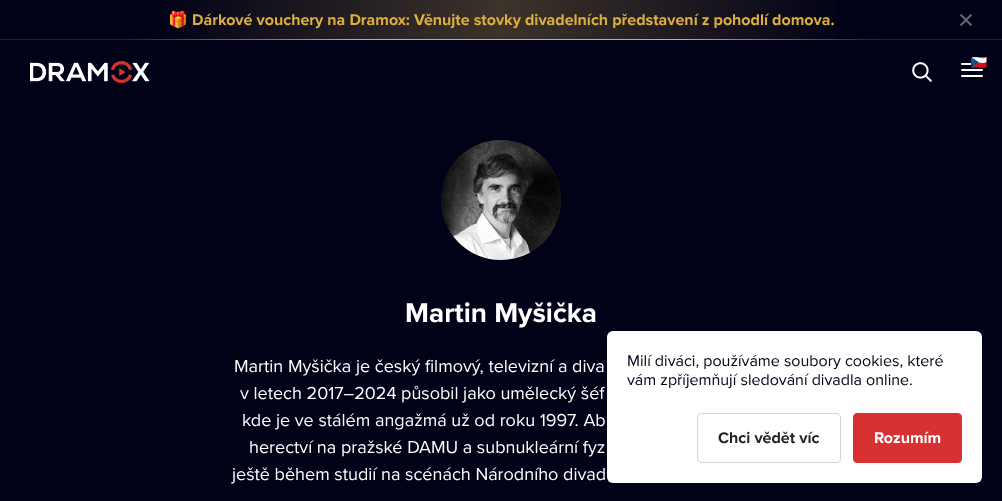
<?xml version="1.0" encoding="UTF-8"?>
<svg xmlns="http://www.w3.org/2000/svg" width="1002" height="501">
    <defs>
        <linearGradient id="g1" gradientUnits="userSpaceOnUse" x1="1002" y1="20" x2="0" y2="20"><stop offset="0.15" stop-color="#010117"/><stop offset="0.5" stop-color="#3C332A"/><stop offset="0.85" stop-color="#010117"/></linearGradient>
        <linearGradient id="g2" gradientUnits="userSpaceOnUse" x1="1002" y1="39" x2="0" y2="40"><stop offset="0.12" stop-color="#1F1F33"/><stop offset="0.32" stop-color="#DEAF3E"/><stop offset="0.64" stop-color="#DEAF3E"/><stop offset="0.88" stop-color="#1F1F33"/></linearGradient>
    </defs>
    <rect width="100%" height="100%" fill="#010118"/>
    <rect x="165" y="0" width="672" height="39" fill="url(#g1)"/>
    <text x="168" y="25" font-family="Noto Color Emoji" font-size="16" font-weight="700" fill="#DEAF3E">🎁</text>
    <text x="192" y="25" font-family="Proxima Nova" font-size="16" font-weight="700" fill="#DEAF3E">Dárkové vouchery na Dramox: Věnujte stovky divadelních představení z pohodlí domova.</text>
    <path d="M 971.5 14.5 L 960.5 25.5 M 960.5 14.5 L 971.5 25.5 Z" fill="none" stroke="#676774" stroke-width="2"/>
    <rect x="0" y="39" width="1002" height="1" fill="url(#g2)"/>
    <image x="30" y="61" width="120" height="23" href="img_01.png"/>
    <image x="912" y="62" width="20" height="20" href="img_02.png"/>
    <path d="M 962 70 H 982 M 962 64 H 982 M 962 76 H 982" fill="none" stroke="#FFFFFF" stroke-width="2" stroke-linecap="round"/>
    <rect x="971" y="57" width="17" height="11" rx="3" fill="#010118"/>
    <text x="971" y="67" font-family="Noto Color Emoji" font-size="13" fill="#FFFFFF">🇨🇿</text>
    <circle cx="501" cy="200" r="60" fill="#1D1D2B"/>
    <image x="441" y="140" width="120" height="120" href="img_03.png"/>
    <text x="405" y="322" font-family="Proxima Nova" font-size="28" font-weight="700" fill="#FFFFFF">Martin Myšička</text>
    <text x="234" y="372" font-family="Proxima Nova" font-size="18" fill="#FFFFFF">Martin Myšička je český filmový, televizní a diva</text>
    <text x="240" y="399" font-family="Proxima Nova" font-size="18" fill="#FFFFFF">v letech 2017–2024 působil jako umělecký šéf</text>
    <text x="242" y="426" font-family="Proxima Nova" font-size="18" fill="#FFFFFF">kde je ve stálém angažmá už od roku 1997. Ab</text>
    <text x="249" y="453" font-family="Proxima Nova" font-size="18" fill="#FFFFFF">herectví na pražské DAMU a subnukleární fyz</text>
    <text x="232" y="480" font-family="Proxima Nova" font-size="18" fill="#FFFFFF">ještě během studií na scénách Národního divad</text>
    <rect x="607" y="331" width="375" height="152" rx="6" fill="#FFFFFF"/>
    <text font-family="Proxima Nova" font-size="16" fill="#010118">
        <tspan x="627" y="366">Milí diváci, používáme soubory cookies, které</tspan>
        <tspan x="627" y="385">vám zpříjemňují sledování divadla online.</tspan>
    </text>
    <rect x="697.5" y="413.5" width="143" height="49" rx="3.5" fill="none" stroke="#D6D6DA"/>
    <text x="718" y="443" font-family="Proxima Nova" font-size="16" font-weight="700" fill="#212529">Chci vědět víc</text>
    <rect x="853.5" y="413.5" width="108" height="49" rx="3.5" fill="#D73231" stroke="#D73231"/>
    <text x="874" y="443" font-family="Proxima Nova" font-size="16" font-weight="700" fill="#FFFFFF">Rozumím</text>
</svg>
